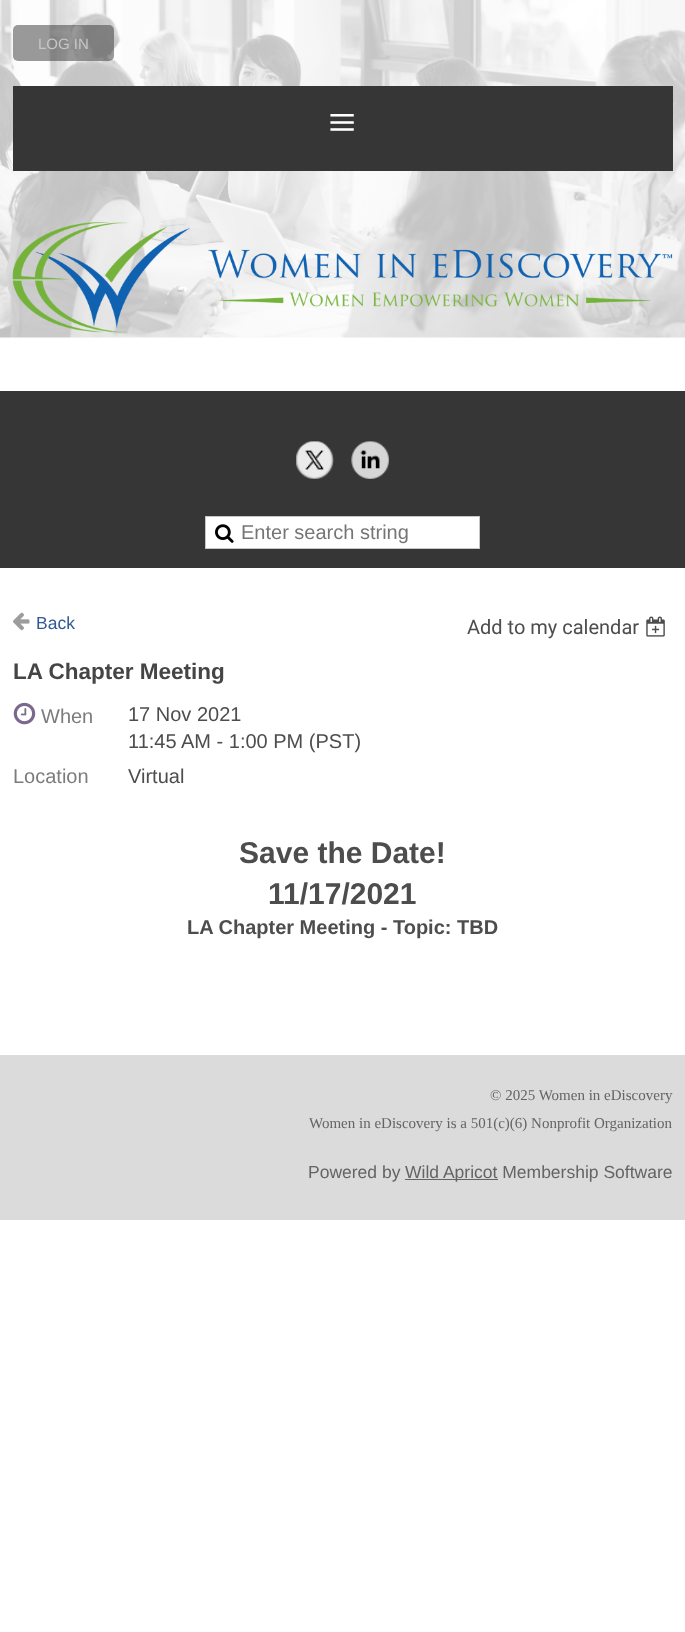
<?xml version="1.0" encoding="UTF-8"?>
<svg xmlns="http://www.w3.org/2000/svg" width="685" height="1632">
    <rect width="100%" height="100%" fill="#FFFFFF"/>
    <image x="0" y="0" width="685" height="338" href="img_01.png"/>
    <rect x="13" y="25" width="101" height="36" rx="5" fill="#363636" fill-opacity="0.5"/>
    <text x="38" y="49" font-family="Liberation Sans" font-size="15" fill="#C6C6C6">LOG IN</text>
    <rect x="13" y="86" width="660" height="85" fill="#363636"/>
    <text x="328" y="139" font-family="Liberation Serif" font-size="50" fill="#FFFFFF">≡</text>
    <image x="12" y="222" width="661" height="111" href="img_02.png"/>
    <rect x="0" y="391" width="685" height="177" fill="#363636"/>
    <image x="296" y="441" width="38" height="38" href="img_03.png"/>
    <image x="351" y="441" width="38" height="38" href="img_04.png"/>
    <rect x="205.5" y="516.5" width="274" height="32" fill="#FFFFFF" stroke="#C6C6C6"/>
    <image x="215" y="524" width="19" height="19" href="img_05.png"/>
    <text x="241" y="539" font-family="Liberation Sans" font-size="20" fill="#757575">Enter search string</text>
    <image x="13" y="612" width="17" height="19" href="img_06.png"/>
    <text x="36" y="629" font-family="Liberation Sans" font-size="17.5" fill="#325897">Back</text>
    <text x="467" y="634" font-family="Roboto" font-size="20" fill="#4D4D4D">Add to my calendar</text>
    <image x="646" y="616" width="19" height="21" href="img_07.png"/>
    <text x="13" y="679" font-family="Liberation Sans" font-size="22.5" font-weight="700" fill="#454545">LA Chapter Meeting</text>
    <image x="13" y="702" width="23" height="23" href="img_08.png"/>
    <text x="41" y="723" font-family="Liberation Sans" font-size="20" fill="#7C7C7C">When</text>
    <text font-family="Liberation Sans" font-size="20" fill="#4D4D4D">
        <tspan x="128" y="721">17 Nov 2021</tspan>
        <tspan x="128" y="748">11:45 AM - 1:00 PM (PST)</tspan>
    </text>
    <text x="13" y="783" font-family="Liberation Sans" font-size="20" fill="#7C7C7C">Location</text>
    <text x="128" y="783" font-family="Liberation Sans" font-size="20" fill="#4D4D4D">Virtual</text>
    <text x="239" y="863" font-family="Liberation Sans" font-size="30" font-weight="700" fill="#4D4D4D">Save the Date!</text>
    <text x="268" y="904" font-family="Liberation Sans" font-size="30" font-weight="700" fill="#4D4D4D">11/17/2021</text>
    <text x="187" y="934" font-family="Liberation Sans" font-size="20" font-weight="700" fill="#4D4D4D">LA Chapter Meeting - Topic: TBD</text>
    <rect x="0" y="1055" width="685" height="165" fill="#DBDBDB"/>
    <text x="490" y="1100" font-family="Liberation Serif" font-size="15" fill="#646464">© 2025 Women in eDiscovery</text>
    <text x="309" y="1128" font-family="Liberation Serif" font-size="15" fill="#646464">Women in eDiscovery is a 501(c)(6) Nonprofit Organization</text>
    <text x="308" y="1178" font-family="Liberation Sans" font-size="17.5" fill="#646464">Powered by</text>
    <rect x="405" y="1179" width="93" height="1" fill="#646464"/>
    <text x="405" y="1178" font-family="Liberation Sans" font-size="17.5" fill="#646464">Wild Apricot Membership Software</text>
</svg>
